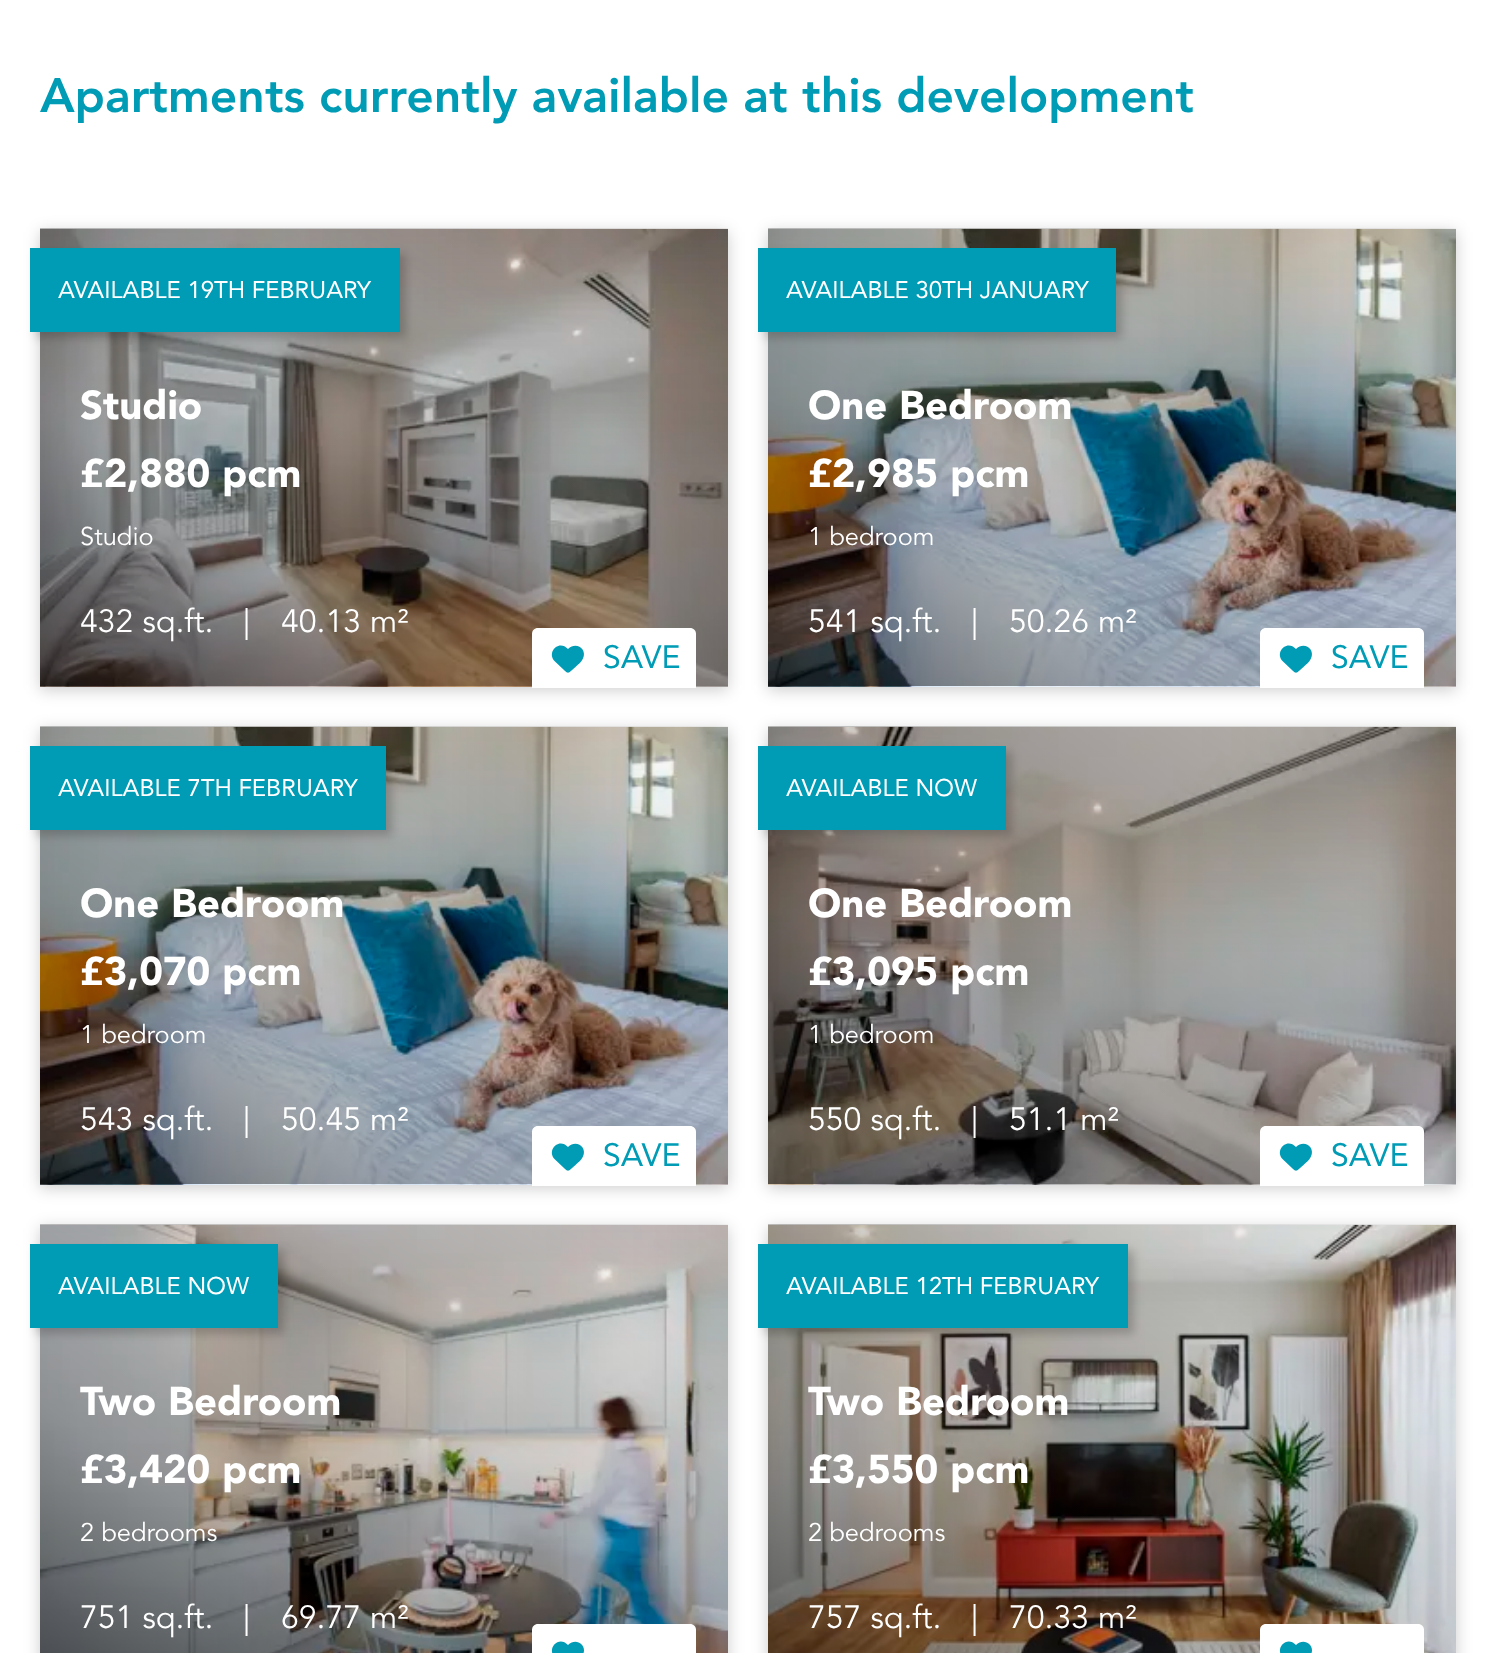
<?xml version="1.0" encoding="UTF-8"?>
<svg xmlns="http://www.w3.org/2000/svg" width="1495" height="1653">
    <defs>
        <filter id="blur1" x="-50%" y="-200%" width="200%" height="500%"><feGaussianBlur stdDeviation="8"/></filter>
        <linearGradient id="g1" gradientUnits="userSpaceOnUse" x1="163" y1="773" x2="605" y2="143"><stop offset="0" stop-color="#000000" stop-opacity="0.6"/><stop offset="0.3" stop-color="#000000" stop-opacity="0.3"/><stop offset="1" stop-color="#000000" stop-opacity="0"/></linearGradient>
        <filter id="blur2" x="-50%" y="-200%" width="200%" height="500%"><feGaussianBlur stdDeviation="5"/></filter>
        <linearGradient id="g2" gradientUnits="userSpaceOnUse" x1="891" y1="773" x2="1333" y2="143"><stop offset="0" stop-color="#000000" stop-opacity="0.6"/><stop offset="0.3" stop-color="#000000" stop-opacity="0.3"/><stop offset="1" stop-color="#000000" stop-opacity="0"/></linearGradient>
        <linearGradient id="g3" gradientUnits="userSpaceOnUse" x1="163" y1="1271" x2="605" y2="641"><stop offset="0" stop-color="#000000" stop-opacity="0.6"/><stop offset="0.3" stop-color="#000000" stop-opacity="0.3"/><stop offset="1" stop-color="#000000" stop-opacity="0"/></linearGradient>
        <linearGradient id="g4" gradientUnits="userSpaceOnUse" x1="891" y1="1271" x2="1333" y2="641"><stop offset="0" stop-color="#000000" stop-opacity="0.6"/><stop offset="0.3" stop-color="#000000" stop-opacity="0.3"/><stop offset="1" stop-color="#000000" stop-opacity="0"/></linearGradient>
        <linearGradient id="g5" gradientUnits="userSpaceOnUse" x1="163" y1="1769" x2="605" y2="1139"><stop offset="0" stop-color="#000000" stop-opacity="0.6"/><stop offset="0.3" stop-color="#000000" stop-opacity="0.3"/><stop offset="1" stop-color="#000000" stop-opacity="0"/></linearGradient>
        <linearGradient id="g6" gradientUnits="userSpaceOnUse" x1="891" y1="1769" x2="1333" y2="1139"><stop offset="0" stop-color="#000000" stop-opacity="0.6"/><stop offset="0.3" stop-color="#000000" stop-opacity="0.3"/><stop offset="1" stop-color="#000000" stop-opacity="0"/></linearGradient>
    </defs>
    <rect width="100%" height="100%" fill="#FFFFFF"/>
    <text x="40" y="112" font-family="Avenir" font-size="48" fill="#009CB6">Apartments currently available at this development</text>
    <rect x="40" y="232" width="688" height="458" fill="#000000" fill-opacity="0.2" filter="url(#blur1)"/>
    <image x="40" y="228" width="688" height="459" href="img_01.png"/>
    <rect x="40" y="228" width="688" height="458" fill="url(#g1)"/>
    <rect x="36" y="254" width="370" height="84" fill="#000000" fill-opacity="0.2" filter="url(#blur2)"/>
    <rect x="30" y="248" width="370" height="84" fill="#009CB6"/>
    <text x="58" y="298" font-family="'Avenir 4'" font-size="24" fill="#FFFFFF">AVAILABLE 19TH FEBRUARY</text>
    <text font-family="'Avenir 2'" font-size="40" fill="#FFFFFF">
        <tspan x="80" y="419">Studio</tspan>
        <tspan x="80" y="487">£2,880 pcm</tspan>
    </text>
    <text x="80" y="545" font-family="'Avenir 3'" font-size="25.5" fill="#FFFFFF">Studio</text>
    <text x="80" y="632" font-family="'Avenir 3'" font-size="32" fill="#FFFFFF">432 sq.ft.</text>
    <text x="243" y="632" font-family="'Avenir 3'" font-size="32" fill="#FFFFFF">|</text>
    <text x="281" y="632" font-family="'Avenir 3'" font-size="32" fill="#FFFFFF">40.13 m²</text>
    <path d="M 538 628 H 690 C 693.5 628 696 630.5 696 634 V 688 H 532 V 634 C 532 630.5 534.5 628 538 628 Z" fill="#FFFFFF"/>
    <path d="M 555 661.5 L 564.5 670.5 C 568 673.5 568 673.5 571.5 670.5 L 575.5 667 C 578 664.5 581.5 662 583 658.5 C 587.5 649 576 641 568 649 C 558.5 639 546 653 555 661.5 Z" fill="#009CB6"/>
    <text x="603" y="668" font-family="'Avenir 4'" font-size="32" fill="#009CB6">SAVE</text>
    <rect x="768" y="232" width="688" height="458" fill="#000000" fill-opacity="0.2" filter="url(#blur1)"/>
    <image x="768" y="228" width="688" height="459" href="img_02.png"/>
    <rect x="768" y="228" width="688" height="458" fill="url(#g2)"/>
    <rect x="764" y="254" width="358" height="84" fill="#000000" fill-opacity="0.2" filter="url(#blur2)"/>
    <rect x="758" y="248" width="358" height="84" fill="#009CB6"/>
    <text x="786" y="298" font-family="'Avenir 4'" font-size="24" fill="#FFFFFF">AVAILABLE 30TH JANUARY</text>
    <text font-family="'Avenir 2'" font-size="40" fill="#FFFFFF">
        <tspan x="808" y="419">One Bedroom</tspan>
        <tspan x="808" y="487">£2,985 pcm</tspan>
    </text>
    <text x="808" y="545" font-family="'Avenir 3'" font-size="25.5" fill="#FFFFFF">1 bedroom</text>
    <text x="808" y="632" font-family="'Avenir 3'" font-size="32" fill="#FFFFFF">541 sq.ft.</text>
    <text x="971" y="632" font-family="'Avenir 3'" font-size="32" fill="#FFFFFF">|</text>
    <text x="1009" y="632" font-family="'Avenir 3'" font-size="32" fill="#FFFFFF">50.26 m²</text>
    <path d="M 1266 628 H 1418 C 1421.5 628 1424 630.5 1424 634 V 688 H 1260 V 634 C 1260 630.5 1262.5 628 1266 628 Z" fill="#FFFFFF"/>
    <path d="M 1283 661.5 L 1292.5 670.5 C 1296 673.5 1296 673.5 1299.5 670.5 L 1303.5 667 C 1306 664.5 1309.5 662 1311 658.5 C 1315.5 649 1304 641 1296 649 C 1286.5 639 1274 653 1283 661.5 Z" fill="#009CB6"/>
    <text x="1331" y="668" font-family="'Avenir 4'" font-size="32" fill="#009CB6">SAVE</text>
    <rect x="40" y="730" width="688" height="458" fill="#000000" fill-opacity="0.2" filter="url(#blur1)"/>
    <image x="40" y="726" width="688" height="459" href="img_03.png"/>
    <rect x="40" y="726" width="688" height="458" fill="url(#g3)"/>
    <rect x="36" y="752" width="356" height="84" fill="#000000" fill-opacity="0.2" filter="url(#blur2)"/>
    <rect x="30" y="746" width="356" height="84" fill="#009CB6"/>
    <text x="58" y="796" font-family="'Avenir 4'" font-size="24" fill="#FFFFFF">AVAILABLE 7TH FEBRUARY</text>
    <text font-family="'Avenir 2'" font-size="40" fill="#FFFFFF">
        <tspan x="80" y="917">One Bedroom</tspan>
        <tspan x="80" y="985">£3,070 pcm</tspan>
    </text>
    <text x="80" y="1043" font-family="'Avenir 3'" font-size="25.5" fill="#FFFFFF">1 bedroom</text>
    <text x="80" y="1130" font-family="'Avenir 3'" font-size="32" fill="#FFFFFF">543 sq.ft.</text>
    <text x="243" y="1130" font-family="'Avenir 3'" font-size="32" fill="#FFFFFF">|</text>
    <text x="281" y="1130" font-family="'Avenir 3'" font-size="32" fill="#FFFFFF">50.45 m²</text>
    <path d="M 538 1126 H 690 C 693.5 1126 696 1128.5 696 1132 V 1186 H 532 V 1132 C 532 1128.5 534.5 1126 538 1126 Z" fill="#FFFFFF"/>
    <path d="M 555 1159.5 L 564.5 1168.5 C 568 1171.5 568 1171.5 571.5 1168.5 L 575.5 1165 C 578 1162.5 581.5 1160 583 1156.5 C 587.5 1147 576 1139 568 1147 C 558.5 1137 546 1151 555 1159.5 Z" fill="#009CB6"/>
    <text x="603" y="1166" font-family="'Avenir 4'" font-size="32" fill="#009CB6">SAVE</text>
    <rect x="768" y="730" width="688" height="458" fill="#000000" fill-opacity="0.2" filter="url(#blur1)"/>
    <image x="768" y="726" width="688" height="459" href="img_04.png"/>
    <rect x="768" y="726" width="688" height="458" fill="url(#g4)"/>
    <rect x="764" y="752" width="248" height="84" fill="#000000" fill-opacity="0.2" filter="url(#blur2)"/>
    <rect x="758" y="746" width="248" height="84" fill="#009CB6"/>
    <text x="786" y="796" font-family="'Avenir 4'" font-size="24" fill="#FFFFFF">AVAILABLE NOW</text>
    <text font-family="'Avenir 2'" font-size="40" fill="#FFFFFF">
        <tspan x="808" y="917">One Bedroom</tspan>
        <tspan x="808" y="985">£3,095 pcm</tspan>
    </text>
    <text x="808" y="1043" font-family="'Avenir 3'" font-size="25.5" fill="#FFFFFF">1 bedroom</text>
    <text x="808" y="1130" font-family="'Avenir 3'" font-size="32" fill="#FFFFFF">550 sq.ft.</text>
    <text x="971" y="1130" font-family="'Avenir 3'" font-size="32" fill="#FFFFFF">|</text>
    <text x="1009" y="1130" font-family="'Avenir 3'" font-size="32" fill="#FFFFFF">51.1 m²</text>
    <path d="M 1266 1126 H 1418 C 1421.5 1126 1424 1128.5 1424 1132 V 1186 H 1260 V 1132 C 1260 1128.5 1262.5 1126 1266 1126 Z" fill="#FFFFFF"/>
    <path d="M 1283 1159.5 L 1292.5 1168.5 C 1296 1171.5 1296 1171.5 1299.5 1168.5 L 1303.5 1165 C 1306 1162.5 1309.5 1160 1311 1156.5 C 1315.5 1147 1304 1139 1296 1147 C 1286.5 1137 1274 1151 1283 1159.5 Z" fill="#009CB6"/>
    <text x="1331" y="1166" font-family="'Avenir 4'" font-size="32" fill="#009CB6">SAVE</text>
    <rect x="40" y="1228" width="688" height="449" fill="#000000" fill-opacity="0.2" filter="url(#blur1)"/>
    <image x="40" y="1224" width="688" height="429" href="img_05.png"/>
    <rect x="40" y="1224" width="688" height="429" fill="url(#g5)"/>
    <rect x="36" y="1250" width="248" height="84" fill="#000000" fill-opacity="0.2" filter="url(#blur2)"/>
    <rect x="30" y="1244" width="248" height="84" fill="#009CB6"/>
    <text x="58" y="1294" font-family="'Avenir 4'" font-size="24" fill="#FFFFFF">AVAILABLE NOW</text>
    <text font-family="'Avenir 2'" font-size="40" fill="#FFFFFF">
        <tspan x="80" y="1415">Two Bedroom</tspan>
        <tspan x="80" y="1483">£3,420 pcm</tspan>
    </text>
    <text x="80" y="1541" font-family="'Avenir 3'" font-size="25.5" fill="#FFFFFF">2 bedrooms</text>
    <text x="80" y="1628" font-family="'Avenir 3'" font-size="32" fill="#FFFFFF">751 sq.ft.</text>
    <text x="243" y="1628" font-family="'Avenir 3'" font-size="32" fill="#FFFFFF">|</text>
    <text x="281" y="1628" font-family="'Avenir 3'" font-size="32" fill="#FFFFFF">69.77 m²</text>
    <path d="M 538 1624 H 690 C 693.5 1624 696 1626.5 696 1630 V 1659 H 532 V 1630 C 532 1626.5 534.5 1624 538 1624 Z" fill="#FFFFFF"/>
    <path d="M 555 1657.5 L 564.5 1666.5 C 568 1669.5 568 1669.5 571.5 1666.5 L 575.5 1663 C 578 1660.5 581.5 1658 583 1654.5 C 587.5 1645 576 1637 568 1645 C 558.5 1635 546 1649 555 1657.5 Z" fill="#009CB6"/>
    <rect x="768" y="1228" width="688" height="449" fill="#000000" fill-opacity="0.2" filter="url(#blur1)"/>
    <image x="768" y="1224" width="688" height="429" href="img_06.png"/>
    <rect x="768" y="1224" width="688" height="429" fill="url(#g6)"/>
    <rect x="764" y="1250" width="370" height="84" fill="#000000" fill-opacity="0.2" filter="url(#blur2)"/>
    <rect x="758" y="1244" width="370" height="84" fill="#009CB6"/>
    <text x="786" y="1294" font-family="'Avenir 4'" font-size="24" fill="#FFFFFF">AVAILABLE 12TH FEBRUARY</text>
    <text font-family="'Avenir 2'" font-size="40" fill="#FFFFFF">
        <tspan x="808" y="1415">Two Bedroom</tspan>
        <tspan x="808" y="1483">£3,550 pcm</tspan>
    </text>
    <text x="808" y="1541" font-family="'Avenir 3'" font-size="25.5" fill="#FFFFFF">2 bedrooms</text>
    <text x="808" y="1628" font-family="'Avenir 3'" font-size="32" fill="#FFFFFF">757 sq.ft.</text>
    <text x="971" y="1628" font-family="'Avenir 3'" font-size="32" fill="#FFFFFF">|</text>
    <text x="1009" y="1628" font-family="'Avenir 3'" font-size="32" fill="#FFFFFF">70.33 m²</text>
    <path d="M 1266 1624 H 1418 C 1421.5 1624 1424 1626.5 1424 1630 V 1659 H 1260 V 1630 C 1260 1626.5 1262.5 1624 1266 1624 Z" fill="#FFFFFF"/>
    <path d="M 1283 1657.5 L 1292.5 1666.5 C 1296 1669.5 1296 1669.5 1299.5 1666.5 L 1303.5 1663 C 1306 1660.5 1309.5 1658 1311 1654.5 C 1315.5 1645 1304 1637 1296 1645 C 1286.5 1635 1274 1649 1283 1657.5 Z" fill="#009CB6"/>
</svg>
